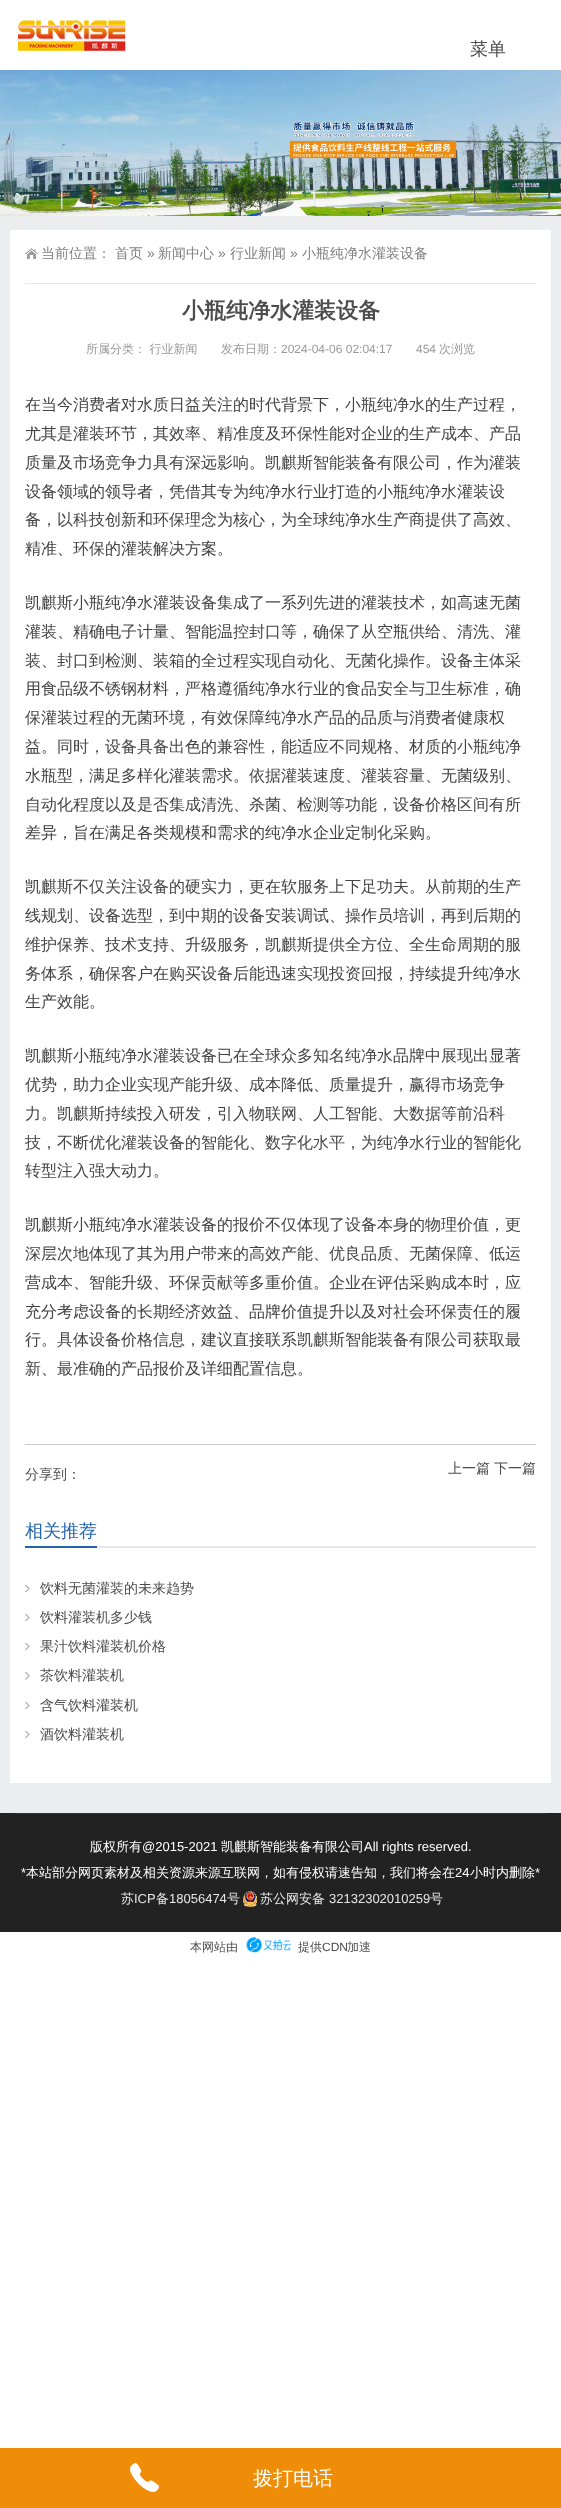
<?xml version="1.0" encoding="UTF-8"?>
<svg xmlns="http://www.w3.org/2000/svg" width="561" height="2508">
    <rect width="100%" height="100%" fill="#FFFFFF"/>
    <image x="18" y="20" width="108" height="31" href="img_01.png"/>
    <text x="470" y="55" font-family="WenQuanYi Zen Hei" font-size="18" font-weight="500" fill="#4D4D4D">菜单</text>
    <image x="0" y="70" width="561" height="146" href="img_02.png"/>
    <rect x="0" y="216" width="561" height="1597" fill="#ECEDEF"/>
    <rect x="10" y="230" width="541" height="1553" fill="#FFFFFF"/>
    <rect x="25" y="283" width="511" height="1" fill="#E5E5E5"/>
    <image x="25" y="248" width="13" height="11" href="img_03.png"/>
    <text x="41" y="258" font-family="WenQuanYi Zen Hei" font-size="14" font-weight="500" fill="#808080">当前位置：</text>
    <text x="115" y="258" font-family="WenQuanYi Zen Hei" font-size="14" font-weight="500" fill="#808080">首页</text>
    <text x="147" y="258" font-family="Liberation Sans" font-size="14" fill="#808080">»</text>
    <text x="158" y="258" font-family="WenQuanYi Zen Hei" font-size="14" font-weight="500" fill="#808080">新闻中心</text>
    <text x="218" y="258" font-family="Liberation Sans" font-size="14" fill="#808080">»</text>
    <text x="230" y="258" font-family="WenQuanYi Zen Hei" font-size="14" font-weight="500" fill="#808080">行业新闻</text>
    <text x="290" y="258" font-family="Liberation Sans" font-size="14" fill="#808080">»</text>
    <text x="302" y="258" font-family="WenQuanYi Zen Hei" font-size="14" font-weight="500" fill="#808080">小瓶纯净水灌装设备</text>
    <text x="182" y="318" font-family="WenQuanYi Zen Hei" font-size="22" font-weight="700" fill="#4D4D4D">小瓶纯净水灌装设备</text>
    <text x="86" y="353" font-family="WenQuanYi Zen Hei" font-size="12" font-weight="500" fill="#999999">所属分类： 行业新闻</text>
    <text x="221" y="353" font-family="WenQuanYi Zen Hei" font-size="12" font-weight="500" fill="#999999">发布日期：</text>
    <text x="281" y="353" font-family="Liberation Sans" font-size="12" fill="#999999">2024-04-06 02:04:17</text>
    <text x="416" y="353" font-family="Liberation Sans" font-size="12" fill="#999999">454</text>
    <text x="439" y="353" font-family="WenQuanYi Zen Hei" font-size="12" font-weight="500" fill="#999999">次浏览</text>
    <text font-family="WenQuanYi Zen Hei" font-size="16" font-weight="500" fill="#434343">
        <tspan x="25" y="410">在当今消费者对水质日益关注的时代背景下，小瓶纯净水的生产过程，</tspan>
        <tspan x="25" y="439">尤其是灌装环节，其效率、精准度及环保性能对企业的生产成本、产品</tspan>
        <tspan x="25" y="468">质量及市场竞争力具有深远影响。凯麒斯智能装备有限公司，作为灌装</tspan>
        <tspan x="25" y="497">设备领域的领导者，凭借其专为纯净水行业打造的小瓶纯净水灌装设</tspan>
        <tspan x="25" y="525">备，以科技创新和环保理念为核心，为全球纯净水生产商提供了高效、</tspan>
        <tspan x="25" y="554">精准、环保的灌装解决方案。</tspan>
    </text>
    <text font-family="WenQuanYi Zen Hei" font-size="16" font-weight="500" fill="#434343">
        <tspan x="25" y="608">凯麒斯小瓶纯净水灌装设备集成了一系列先进的灌装技术，如高速无菌</tspan>
        <tspan x="25" y="637">灌装、精确电子计量、智能温控封口等，确保了从空瓶供给、清洗、灌</tspan>
        <tspan x="25" y="666">装、封口到检测、装箱的全过程实现自动化、无菌化操作。设备主体采</tspan>
        <tspan x="25" y="694">用食品级不锈钢材料，严格遵循纯净水行业的食品安全与卫生标准，确</tspan>
        <tspan x="25" y="723">保灌装过程的无菌环境，有效保障纯净水产品的品质与消费者健康权</tspan>
        <tspan x="25" y="752">益。同时，设备具备出色的兼容性，能适应不同规格、材质的小瓶纯净</tspan>
        <tspan x="25" y="781">水瓶型，满足多样化灌装需求。依据灌装速度、灌装容量、无菌级别、</tspan>
        <tspan x="25" y="810">自动化程度以及是否集成清洗、杀菌、检测等功能，设备价格区间有所</tspan>
        <tspan x="25" y="838">差异，旨在满足各类规模和需求的纯净水企业定制化采购。</tspan>
    </text>
    <text font-family="WenQuanYi Zen Hei" font-size="16" font-weight="500" fill="#434343">
        <tspan x="25" y="892">凯麒斯不仅关注设备的硬实力，更在软服务上下足功夫。从前期的生产</tspan>
        <tspan x="25" y="921">线规划、设备选型，到中期的设备安装调试、操作员培训，再到后期的</tspan>
        <tspan x="25" y="950">维护保养、技术支持、升级服务，凯麒斯提供全方位、全生命周期的服</tspan>
        <tspan x="25" y="979">务体系，确保客户在购买设备后能迅速实现投资回报，持续提升纯净水</tspan>
        <tspan x="25" y="1007">生产效能。</tspan>
    </text>
    <text font-family="WenQuanYi Zen Hei" font-size="16" font-weight="500" fill="#434343">
        <tspan x="25" y="1061">凯麒斯小瓶纯净水灌装设备已在全球众多知名纯净水品牌中展现出显著</tspan>
        <tspan x="25" y="1090">优势，助力企业实现产能升级、成本降低、质量提升，赢得市场竞争</tspan>
        <tspan x="25" y="1119">力。凯麒斯持续投入研发，引入物联网、人工智能、大数据等前沿科</tspan>
        <tspan x="25" y="1148">技，不断优化灌装设备的智能化、数字化水平，为纯净水行业的智能化</tspan>
        <tspan x="25" y="1176">转型注入强大动力。</tspan>
    </text>
    <text font-family="WenQuanYi Zen Hei" font-size="16" font-weight="500" fill="#434343">
        <tspan x="25" y="1230">凯麒斯小瓶纯净水灌装设备的报价不仅体现了设备本身的物理价值，更</tspan>
        <tspan x="25" y="1259">深层次地体现了其为用户带来的高效产能、优良品质、无菌保障、低运</tspan>
        <tspan x="25" y="1288">营成本、智能升级、环保贡献等多重价值。企业在评估采购成本时，应</tspan>
        <tspan x="25" y="1317">充分考虑设备的长期经济效益、品牌价值提升以及对社会环保责任的履</tspan>
        <tspan x="25" y="1345">行。具体设备价格信息，建议直接联系凯麒斯智能装备有限公司获取最</tspan>
        <tspan x="25" y="1374">新、最准确的产品报价及详细配置信息。</tspan>
    </text>
    <rect x="25" y="1444" width="511" height="1" fill="#C8C9CB"/>
    <text x="25" y="1479" font-family="WenQuanYi Zen Hei" font-size="14" font-weight="500" fill="#4D4D4D">分享到：</text>
    <text x="448" y="1473" font-family="WenQuanYi Zen Hei" font-size="14" font-weight="500" fill="#4D4D4D">上一篇</text>
    <text x="494" y="1473" font-family="WenQuanYi Zen Hei" font-size="14" font-weight="500" fill="#4D4D4D">下一篇</text>
    <rect x="97" y="1546" width="439" height="2" fill="#E8E8E8"/>
    <rect x="25" y="1546" width="72" height="2" fill="#2365AC"/>
    <text x="25" y="1537" font-family="WenQuanYi Zen Hei" font-size="18" font-weight="500" fill="#2365AC">相关推荐</text>
    <image x="25" y="1585" width="5" height="7" href="img_04.png"/>
    <text x="40" y="1593" font-family="WenQuanYi Zen Hei" font-size="14" font-weight="500" fill="#4D4D4D">饮料无菌灌装的未来趋势</text>
    <image x="25" y="1614" width="5" height="7" href="img_04.png"/>
    <text x="40" y="1622" font-family="WenQuanYi Zen Hei" font-size="14" font-weight="500" fill="#4D4D4D">饮料灌装机多少钱</text>
    <image x="25" y="1643" width="5" height="7" href="img_04.png"/>
    <text x="40" y="1651" font-family="WenQuanYi Zen Hei" font-size="14" font-weight="500" fill="#4D4D4D">果汁饮料灌装机价格</text>
    <image x="25" y="1672" width="5" height="8" href="img_05.png"/>
    <text x="40" y="1680" font-family="WenQuanYi Zen Hei" font-size="14" font-weight="500" fill="#4D4D4D">茶饮料灌装机</text>
    <image x="25" y="1702" width="5" height="7" href="img_04.png"/>
    <text x="40" y="1710" font-family="WenQuanYi Zen Hei" font-size="14" font-weight="500" fill="#4D4D4D">含气饮料灌装机</text>
    <image x="25" y="1731" width="5" height="7" href="img_04.png"/>
    <text x="40" y="1739" font-family="WenQuanYi Zen Hei" font-size="14" font-weight="500" fill="#4D4D4D">酒饮料灌装机</text>
    <rect x="0" y="1813" width="561" height="119" fill="#222222"/>
    <rect x="15" y="1813" width="531" height="1" fill="#333333"/>
    <text x="90" y="1851" font-family="WenQuanYi Zen Hei" font-size="13" font-weight="500" fill="#FFFFFF">版权所有</text>
    <text x="142" y="1851" font-family="Liberation Sans" font-size="13" fill="#FFFFFF">@2015-2021</text>
    <text x="221" y="1851" font-family="WenQuanYi Zen Hei" font-size="13" font-weight="500" fill="#FFFFFF">凯麒斯智能装备有限公司</text>
    <text x="364" y="1851" font-family="Liberation Sans" font-size="13" fill="#FFFFFF">All rights reserved.</text>
    <text x="21" y="1877" font-family="Liberation Sans" font-size="13" fill="#FFFFFF">*</text>
    <text x="26" y="1877" font-family="WenQuanYi Zen Hei" font-size="13" font-weight="500" fill="#FFFFFF">本站部分网页素材及相关资源来源互联网，如有侵权请速告知，我们将会在</text>
    <text x="455" y="1877" font-family="Liberation Sans" font-size="13" fill="#FFFFFF">24</text>
    <text x="470" y="1877" font-family="WenQuanYi Zen Hei" font-size="13" font-weight="500" fill="#FFFFFF">小时内删除</text>
    <text x="535" y="1877" font-family="Liberation Sans" font-size="13" fill="#FFFFFF">*</text>
    <text x="121" y="1903" font-family="WenQuanYi Zen Hei" font-size="13" font-weight="500" fill="#E5E5E5">苏</text>
    <text x="134" y="1903" font-family="Liberation Sans" font-size="13" fill="#E5E5E5">ICP</text>
    <text x="156" y="1903" font-family="WenQuanYi Zen Hei" font-size="13" font-weight="500" fill="#E5E5E5">备</text>
    <text x="169" y="1903" font-family="Liberation Sans" font-size="13" fill="#E5E5E5">18056474</text>
    <text x="227" y="1903" font-family="WenQuanYi Zen Hei" font-size="13" font-weight="500" fill="#E5E5E5">号</text>
    <image x="243" y="1891" width="14" height="16" href="img_06.png"/>
    <text x="260" y="1903" font-family="WenQuanYi Zen Hei" font-size="13" font-weight="500" fill="#E5E5E5">苏公网安备</text>
    <text x="329" y="1903" font-family="Liberation Sans" font-size="13" fill="#E5E5E5">32132302010259</text>
    <text x="430" y="1903" font-family="WenQuanYi Zen Hei" font-size="13" font-weight="500" fill="#E5E5E5">号</text>
    <text x="190" y="1951" font-family="WenQuanYi Zen Hei" font-size="12" font-weight="500" fill="#4D4D4D">本网站由</text>
    <image x="246" y="1937" width="46" height="16" href="img_07.png"/>
    <text x="298" y="1951" font-family="WenQuanYi Zen Hei" font-size="12" font-weight="500" fill="#4D4D4D">提供</text>
    <text x="322" y="1951" font-family="Liberation Sans" font-size="12" fill="#4D4D4D">CDN</text>
    <text x="347" y="1951" font-family="WenQuanYi Zen Hei" font-size="12" font-weight="500" fill="#4D4D4D">加速</text>
    <rect x="0" y="2448" width="561" height="60" fill="#EF8D08"/>
    <image x="130" y="2463" width="29" height="29" href="img_08.png"/>
    <text x="253" y="2485" font-family="WenQuanYi Zen Hei" font-size="20" font-weight="500" fill="#FFFFFF">拨打电话</text>
</svg>
